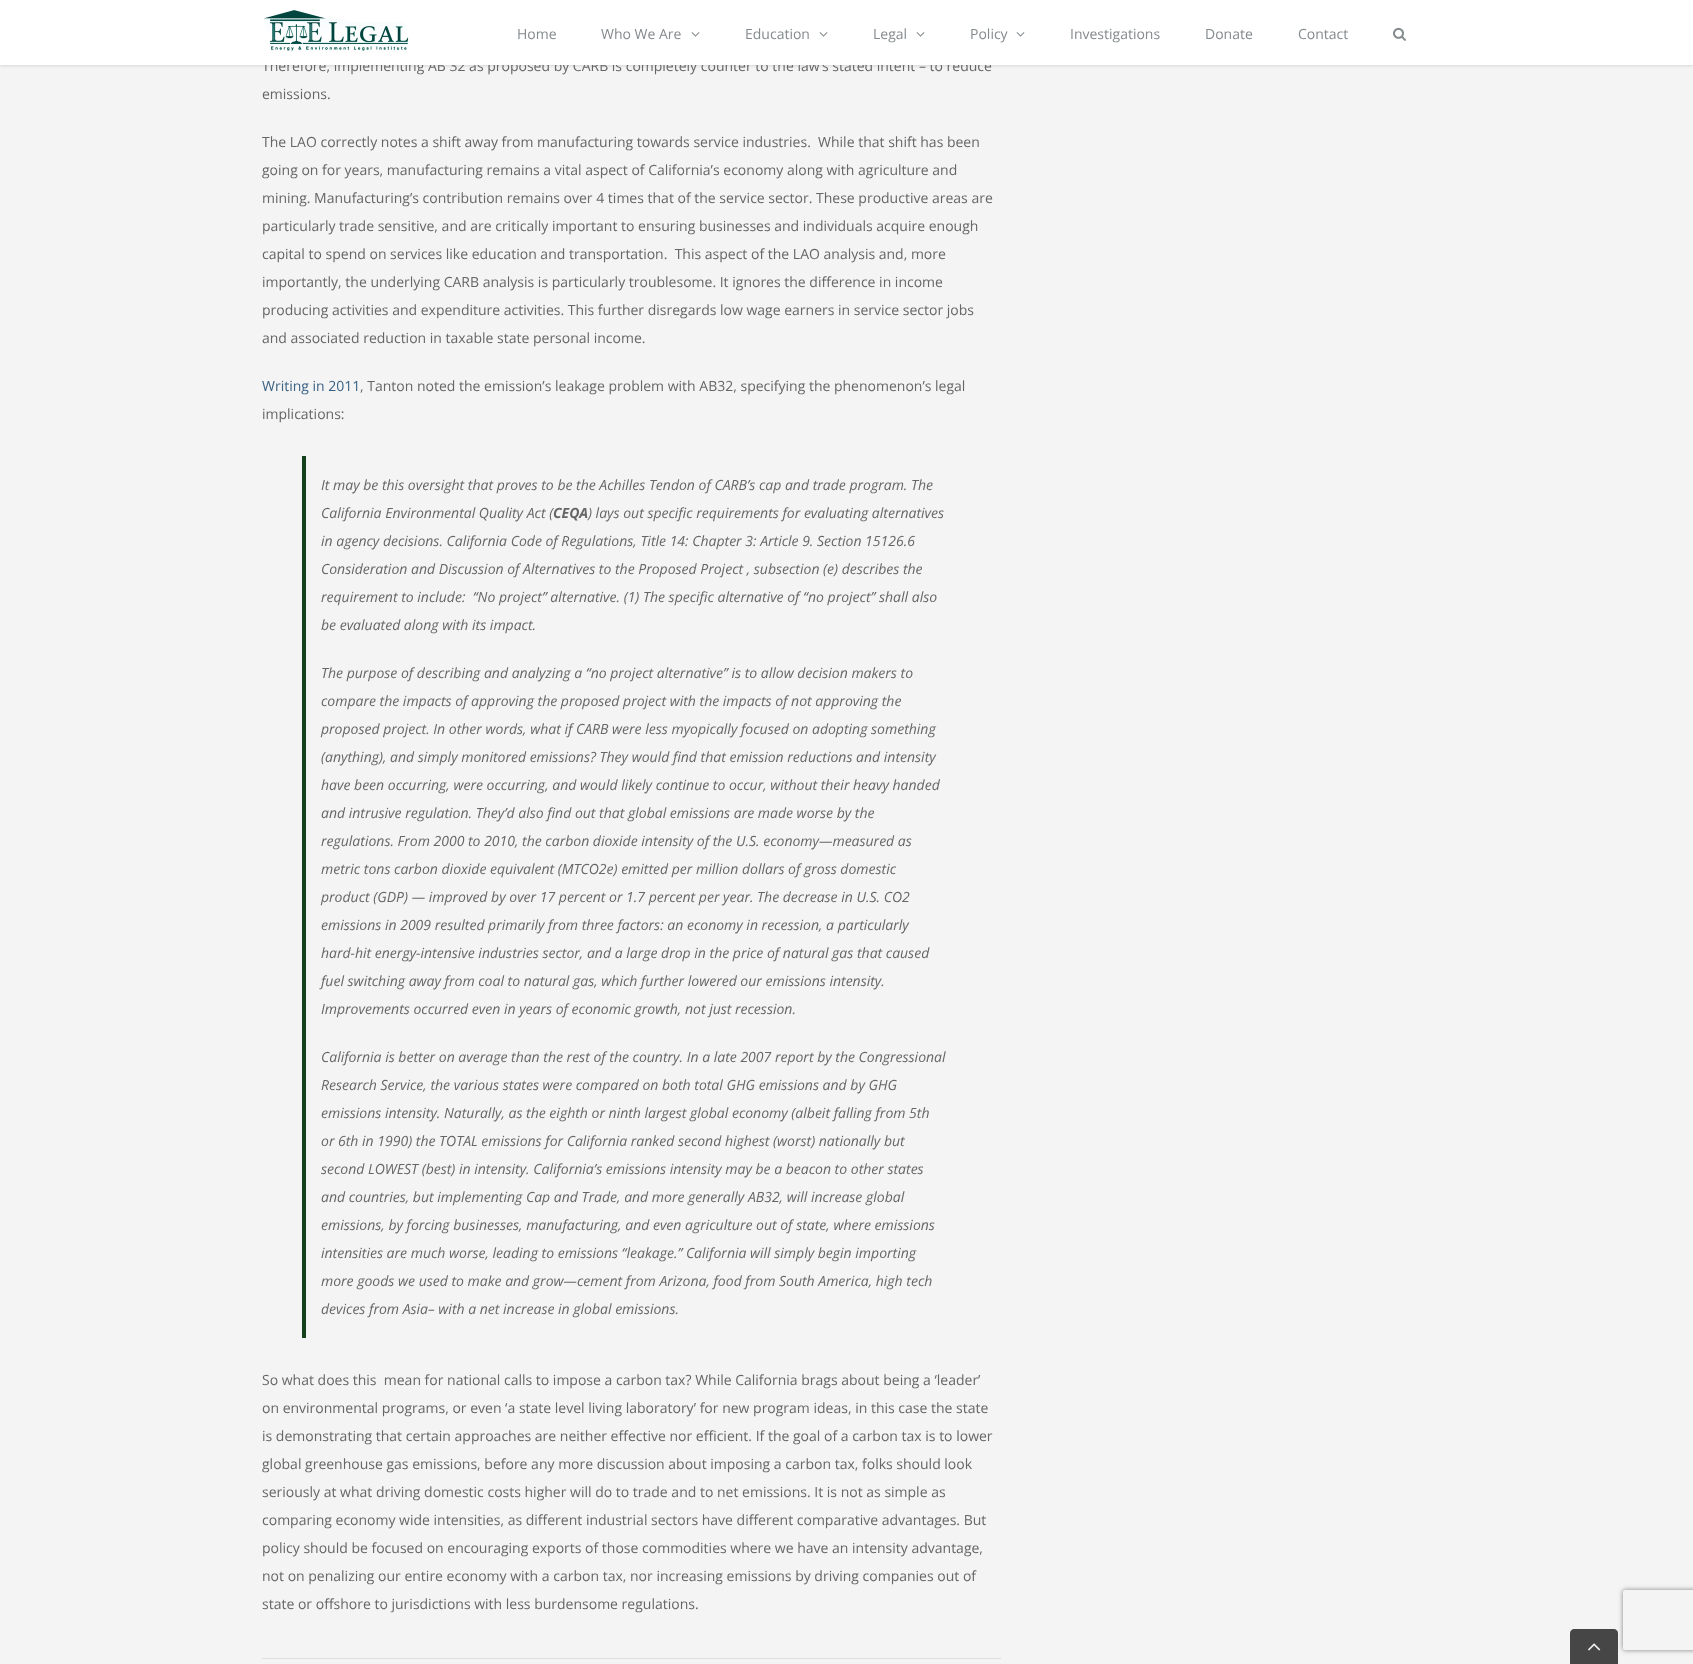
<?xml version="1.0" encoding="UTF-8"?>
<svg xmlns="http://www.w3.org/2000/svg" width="1693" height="1664">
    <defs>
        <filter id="blur1" x="-50%" y="-200%" width="200%" height="500%"><feGaussianBlur stdDeviation="1.5"/></filter>
        <clipPath id="clip1"><path d="M 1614 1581 H 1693 V 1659 H 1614 Z M 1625 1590 H 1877 C 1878 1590 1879 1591 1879 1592 V 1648 C 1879 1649 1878 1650 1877 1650 H 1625 C 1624 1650 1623 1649 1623 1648 V 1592 C 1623 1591 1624 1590 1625 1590 Z" clip-rule="evenodd"/></clipPath>
        <filter id="blur2" x="-50%" y="-200%" width="200%" height="500%"><feGaussianBlur stdDeviation="2.5"/></filter>
    </defs>
    <rect width="100%" height="100%" fill="#F4F4F4"/>
    <rect x="0" y="1" width="1693" height="65" fill="#000000" fill-opacity="0.12" filter="url(#blur1)"/>
    <text x="262" y="71" font-family="Open Sans" font-size="14" fill="#666666">Therefore, implementing AB 32 as proposed by CARB is completely counter to the law’s stated intent – to reduce</text>
    <rect x="0" y="0" width="1693" height="65" fill="#FFFFFF"/>
    <image x="263" y="10" width="146" height="43" href="img_01.png"/>
    <text x="517" y="39" font-family="Open Sans" font-size="14" fill="#848B8E">Home</text>
    <text x="601" y="39" font-family="Open Sans" font-size="14" fill="#848B8E">Who We Are</text>
    <image x="691" y="32" width="9" height="5" href="img_02.png"/>
    <text x="745" y="39" font-family="Open Sans" font-size="14" fill="#848B8E">Education</text>
    <image x="819" y="32" width="9" height="5" href="img_02.png"/>
    <text x="873" y="39" font-family="Open Sans" font-size="14" fill="#848B8E">Legal</text>
    <image x="916" y="32" width="9" height="5" href="img_02.png"/>
    <text x="970" y="39" font-family="Open Sans" font-size="14" fill="#848B8E">Policy</text>
    <image x="1016" y="32" width="9" height="5" href="img_02.png"/>
    <text x="1070" y="39" font-family="Open Sans" font-size="14" fill="#848B8E">Investigations</text>
    <text x="1205" y="39" font-family="Open Sans" font-size="14" fill="#848B8E">Donate</text>
    <text x="1298" y="39" font-family="Open Sans" font-size="14" fill="#848B8E">Contact</text>
    <image x="1393" y="27" width="13" height="14" href="img_03.png"/>
    <text x="262" y="99" font-family="Open Sans" font-size="14" fill="#666666">emissions.</text>
    <text x="262" y="147" font-family="Open Sans" font-size="14" fill="#666666" xml:space="preserve">The LAO correctly notes a shift away from manufacturing towards service industries.  While that shift has been</text>
    <text x="262" y="175" font-family="Open Sans" font-size="14" fill="#666666">going on for years, manufacturing remains a vital aspect of California’s economy along with agriculture and</text>
    <text x="262" y="203" font-family="Open Sans" font-size="14" fill="#666666">mining. Manufacturing’s contribution remains over 4 times that of the service sector. These productive areas are</text>
    <text x="262" y="231" font-family="Open Sans" font-size="14" fill="#666666">particularly trade sensitive, and are critically important to ensuring businesses and individuals acquire enough</text>
    <text x="262" y="259" font-family="Open Sans" font-size="14" fill="#666666" xml:space="preserve">capital to spend on services like education and transportation.  This aspect of the LAO analysis and, more</text>
    <text x="262" y="287" font-family="Open Sans" font-size="14" fill="#666666">importantly, the underlying CARB analysis is particularly troublesome. It ignores the difference in income</text>
    <text x="262" y="315" font-family="Open Sans" font-size="14" fill="#666666">producing activities and expenditure activities. This further disregards low wage earners in service sector jobs</text>
    <text x="262" y="343" font-family="Open Sans" font-size="14" fill="#666666">and associated reduction in taxable state personal income.</text>
    <text x="262" y="391" font-family="Open Sans" font-size="14" fill="#3A6284">Writing in 2011</text>
    <text x="360" y="391" font-family="Open Sans" font-size="14" fill="#666666">, Tanton noted the emission’s leakage problem with AB32, specifying the phenomenon’s legal</text>
    <text x="262" y="419" font-family="Open Sans" font-size="14" fill="#666666">implications:</text>
    <rect x="302" y="456" width="4" height="882" fill="#14421D"/>
    <text x="321" y="490" font-family="Open Sans" font-size="14" font-style="italic" fill="#666666">It may be this oversight that proves to be the Achilles Tendon of CARB’s cap and trade program. The</text>
    <text x="321" y="518" font-family="Open Sans" font-size="14" font-style="italic" fill="#666666">California Environmental Quality Act (</text>
    <text x="553" y="518" font-family="Open Sans" font-size="14" font-weight="700" font-style="italic" fill="#666666">CEQA</text>
    <text x="588" y="518" font-family="Open Sans" font-size="14" font-style="italic" fill="#666666">) lays out specific requirements for evaluating alternatives</text>
    <text x="321" y="546" font-family="Open Sans" font-size="14" font-style="italic" fill="#666666">in agency decisions. California Code of Regulations, Title 14: Chapter 3: Article 9. Section 15126.6</text>
    <text x="321" y="574" font-family="Open Sans" font-size="14" font-style="italic" fill="#666666">Consideration and Discussion of Alternatives to the Proposed Project , subsection (e) describes the</text>
    <text x="321" y="602" font-family="Open Sans" font-size="14" font-style="italic" fill="#666666" xml:space="preserve">requirement to include:  “No project” alternative. (1) The specific alternative of “no project” shall also</text>
    <text x="321" y="630" font-family="Open Sans" font-size="14" font-style="italic" fill="#666666">be evaluated along with its impact.</text>
    <text x="321" y="678" font-family="Open Sans" font-size="14" font-style="italic" fill="#666666">The purpose of describing and analyzing a “no project alternative” is to allow decision makers to</text>
    <text x="321" y="706" font-family="Open Sans" font-size="14" font-style="italic" fill="#666666">compare the impacts of approving the proposed project with the impacts of not approving the</text>
    <text x="321" y="734" font-family="Open Sans" font-size="14" font-style="italic" fill="#666666">proposed project. In other words, what if CARB were less myopically focused on adopting something</text>
    <text x="321" y="762" font-family="Open Sans" font-size="14" font-style="italic" fill="#666666">(anything), and simply monitored emissions? They would find that emission reductions and intensity</text>
    <text x="321" y="790" font-family="Open Sans" font-size="14" font-style="italic" fill="#666666">have been occurring, were occurring, and would likely continue to occur, without their heavy handed</text>
    <text x="321" y="818" font-family="Open Sans" font-size="14" font-style="italic" fill="#666666">and intrusive regulation. They’d also find out that global emissions are made worse by the</text>
    <text x="321" y="846" font-family="Open Sans" font-size="14" font-style="italic" fill="#666666">regulations. From 2000 to 2010, the carbon dioxide intensity of the U.S. economy—measured as</text>
    <text x="321" y="874" font-family="Open Sans" font-size="14" font-style="italic" fill="#666666">metric tons carbon dioxide equivalent (MTCO2e) emitted per million dollars of gross domestic</text>
    <text x="321" y="902" font-family="Open Sans" font-size="14" font-style="italic" fill="#666666">product (GDP) — improved by over 17 percent or 1.7 percent per year. The decrease in U.S. CO2</text>
    <text x="321" y="930" font-family="Open Sans" font-size="14" font-style="italic" fill="#666666">emissions in 2009 resulted primarily from three factors: an economy in recession, a particularly</text>
    <text x="321" y="958" font-family="Open Sans" font-size="14" font-style="italic" fill="#666666">hard-hit energy-intensive industries sector, and a large drop in the price of natural gas that caused</text>
    <text x="321" y="986" font-family="Open Sans" font-size="14" font-style="italic" fill="#666666">fuel switching away from coal to natural gas, which further lowered our emissions intensity.</text>
    <text x="321" y="1014" font-family="Open Sans" font-size="14" font-style="italic" fill="#666666">Improvements occurred even in years of economic growth, not just recession.</text>
    <text x="321" y="1062" font-family="Open Sans" font-size="14" font-style="italic" fill="#666666">California is better on average than the rest of the country. In a late 2007 report by the Congressional</text>
    <text x="321" y="1090" font-family="Open Sans" font-size="14" font-style="italic" fill="#666666">Research Service, the various states were compared on both total GHG emissions and by GHG</text>
    <text x="321" y="1118" font-family="Open Sans" font-size="14" font-style="italic" fill="#666666">emissions intensity. Naturally, as the eighth or ninth largest global economy (albeit falling from 5th</text>
    <text x="321" y="1146" font-family="Open Sans" font-size="14" font-style="italic" fill="#666666">or 6th in 1990) the TOTAL emissions for California ranked second highest (worst) nationally but</text>
    <text x="321" y="1174" font-family="Open Sans" font-size="14" font-style="italic" fill="#666666">second LOWEST (best) in intensity. California’s emissions intensity may be a beacon to other states</text>
    <text x="321" y="1202" font-family="Open Sans" font-size="14" font-style="italic" fill="#666666">and countries, but implementing Cap and Trade, and more generally AB32, will increase global</text>
    <text x="321" y="1230" font-family="Open Sans" font-size="14" font-style="italic" fill="#666666">emissions, by forcing businesses, manufacturing, and even agriculture out of state, where emissions</text>
    <text x="321" y="1258" font-family="Open Sans" font-size="14" font-style="italic" fill="#666666">intensities are much worse, leading to emissions “leakage.” California will simply begin importing</text>
    <text x="321" y="1286" font-family="Open Sans" font-size="14" font-style="italic" fill="#666666">more goods we used to make and grow—cement from Arizona, food from South America, high tech</text>
    <text x="321" y="1314" font-family="Open Sans" font-size="14" font-style="italic" fill="#666666">devices from Asia– with a net increase in global emissions.</text>
    <text x="262" y="1385" font-family="Open Sans" font-size="14" fill="#666666" xml:space="preserve">So what does this  mean for national calls to impose a carbon tax? While California brags about being a ‘leader’</text>
    <text x="262" y="1413" font-family="Open Sans" font-size="14" fill="#666666">on environmental programs, or even ‘a state level living laboratory’ for new program ideas, in this case the state</text>
    <text x="262" y="1441" font-family="Open Sans" font-size="14" fill="#666666">is demonstrating that certain approaches are neither effective nor efficient. If the goal of a carbon tax is to lower</text>
    <text x="262" y="1469" font-family="Open Sans" font-size="14" fill="#666666">global greenhouse gas emissions, before any more discussion about imposing a carbon tax, folks should look</text>
    <text x="262" y="1497" font-family="Open Sans" font-size="14" fill="#666666">seriously at what driving domestic costs higher will do to trade and to net emissions. It is not as simple as</text>
    <text x="262" y="1525" font-family="Open Sans" font-size="14" fill="#666666">comparing economy wide intensities, as different industrial sectors have different comparative advantages. But</text>
    <text x="262" y="1553" font-family="Open Sans" font-size="14" fill="#666666">policy should be focused on encouraging exports of those commodities where we have an intensity advantage,</text>
    <text x="262" y="1581" font-family="Open Sans" font-size="14" fill="#666666">not on penalizing our entire economy with a carbon tax, nor increasing emissions by driving companies out of</text>
    <text x="262" y="1609" font-family="Open Sans" font-size="14" fill="#666666">state or offshore to jurisdictions with less burdensome regulations.</text>
    <rect x="262" y="1658" width="739" height="1" fill="#E0DEDE"/>
    <g clip-path="url(#clip1)">
        <rect x="1623" y="1590" width="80" height="60" rx="2" fill="#808080" filter="url(#blur2)"/>
    </g>
    <path d="M 1574 1629 H 1614 C 1616 1629 1618 1631 1618 1633 V 1664 H 1570 V 1633 C 1570 1631 1572 1629 1574 1629 Z" fill="#464646"/>
    <image x="1588" y="1643" width="13" height="8" href="img_04.png"/>
</svg>
